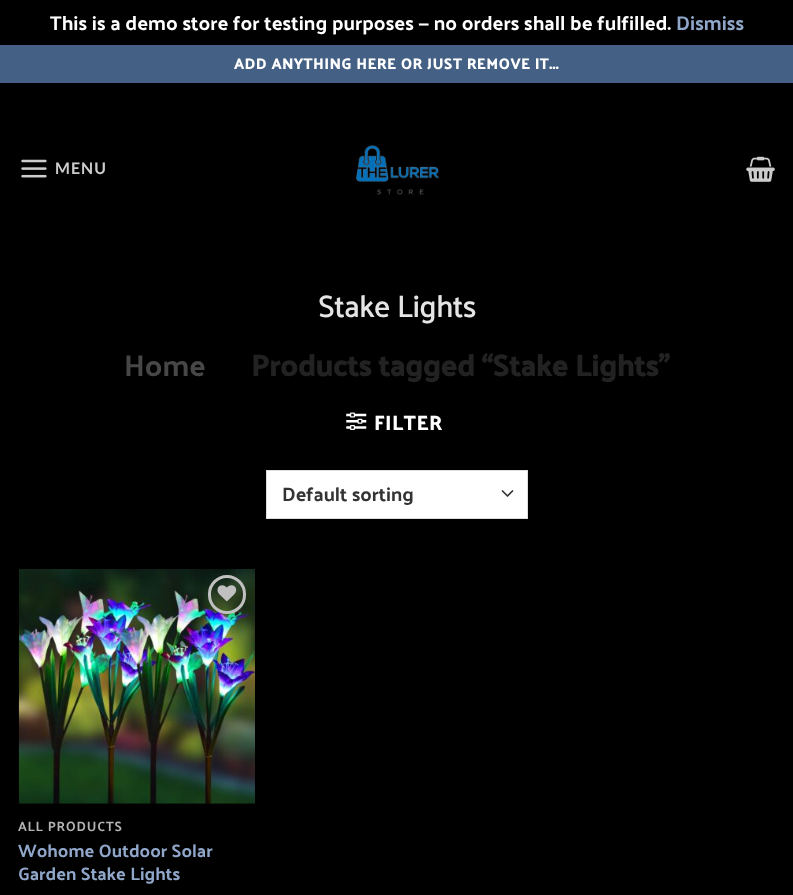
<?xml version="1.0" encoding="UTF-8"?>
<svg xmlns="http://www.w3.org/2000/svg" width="793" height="895">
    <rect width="100%" height="100%" fill="#000000"/>
    <text x="50" y="30" font-family="Palanquin Dark" font-size="20" fill="#FFFFFF">This is a demo store for testing purposes — no orders shall be fulfilled.</text>
    <text x="676" y="30" font-family="Palanquin Dark" font-size="20" fill="#90A7CA">Dismiss</text>
    <rect x="0" y="45" width="793" height="38" fill="#446084"/>
    <text x="234" y="69" font-family="Palanquin Dark" font-size="15" font-weight="700" letter-spacing="0.75" fill="#FFFFFF">ADD ANYTHING HERE OR JUST REMOVE IT...</text>
    <image x="21" y="159" width="26" height="19" href="img_01.png"/>
    <text x="55" y="174" font-family="Lato" font-size="16" font-weight="700" letter-spacing="1" fill="#CCCCCC">MENU</text>
    <image x="356" y="145" width="83" height="50" href="img_02.png"/>
    <image x="746" y="156" width="29" height="26" href="img_03.png"/>
    <text x="318" y="317" font-family="Palanquin" font-size="30" font-weight="700" fill="#E5E5E5">Stake Lights</text>
    <text x="124" y="376" font-family="Palanquin Dark" font-size="30" fill="#474747">Home</text>
    <text x="251" y="376" font-family="Palanquin Dark" font-size="30" font-weight="700" fill="#222222">Products tagged “Stake Lights”</text>
    <image x="346" y="412" width="21" height="18" href="img_04.png"/>
    <text x="374" y="430" font-family="Palanquin Dark" font-size="20" font-weight="700" letter-spacing="1" fill="#FFFFFF">FILTER</text>
    <rect x="267" y="471" width="260" height="47" fill="#FFFFFF"/>
    <path d="M 502.5 491 L 507.5 496 L 512.5 491" fill="none" stroke="#333333" stroke-width="1.7" stroke-linecap="round" stroke-linejoin="round"/>
    <rect x="266.5" y="470.5" width="261" height="48" fill="none" stroke="#DDDDDD"/>
    <text x="282" y="501" font-family="Palanquin Dark" font-size="19.5" fill="#333333">Default sorting</text>
    <image x="18" y="569" width="237" height="235" href="img_05.png"/>
    <rect x="209.5" y="576.5" width="35" height="36" rx="17.5" fill="none" stroke="#C0C0C0" stroke-width="3"/>
    <image x="217" y="585" width="20" height="17" href="img_06.png"/>
    <text x="18" y="831" font-family="Palanquin Dark" font-size="13.5" letter-spacing="0.75" fill="#B3B3B3">ALL PRODUCTS</text>
    <text font-family="Palanquin Dark" font-size="18" fill="#90A7CA">
        <tspan x="18" y="857">Wohome Outdoor Solar</tspan>
        <tspan x="18" y="880">Garden Stake Lights</tspan>
    </text>
</svg>
